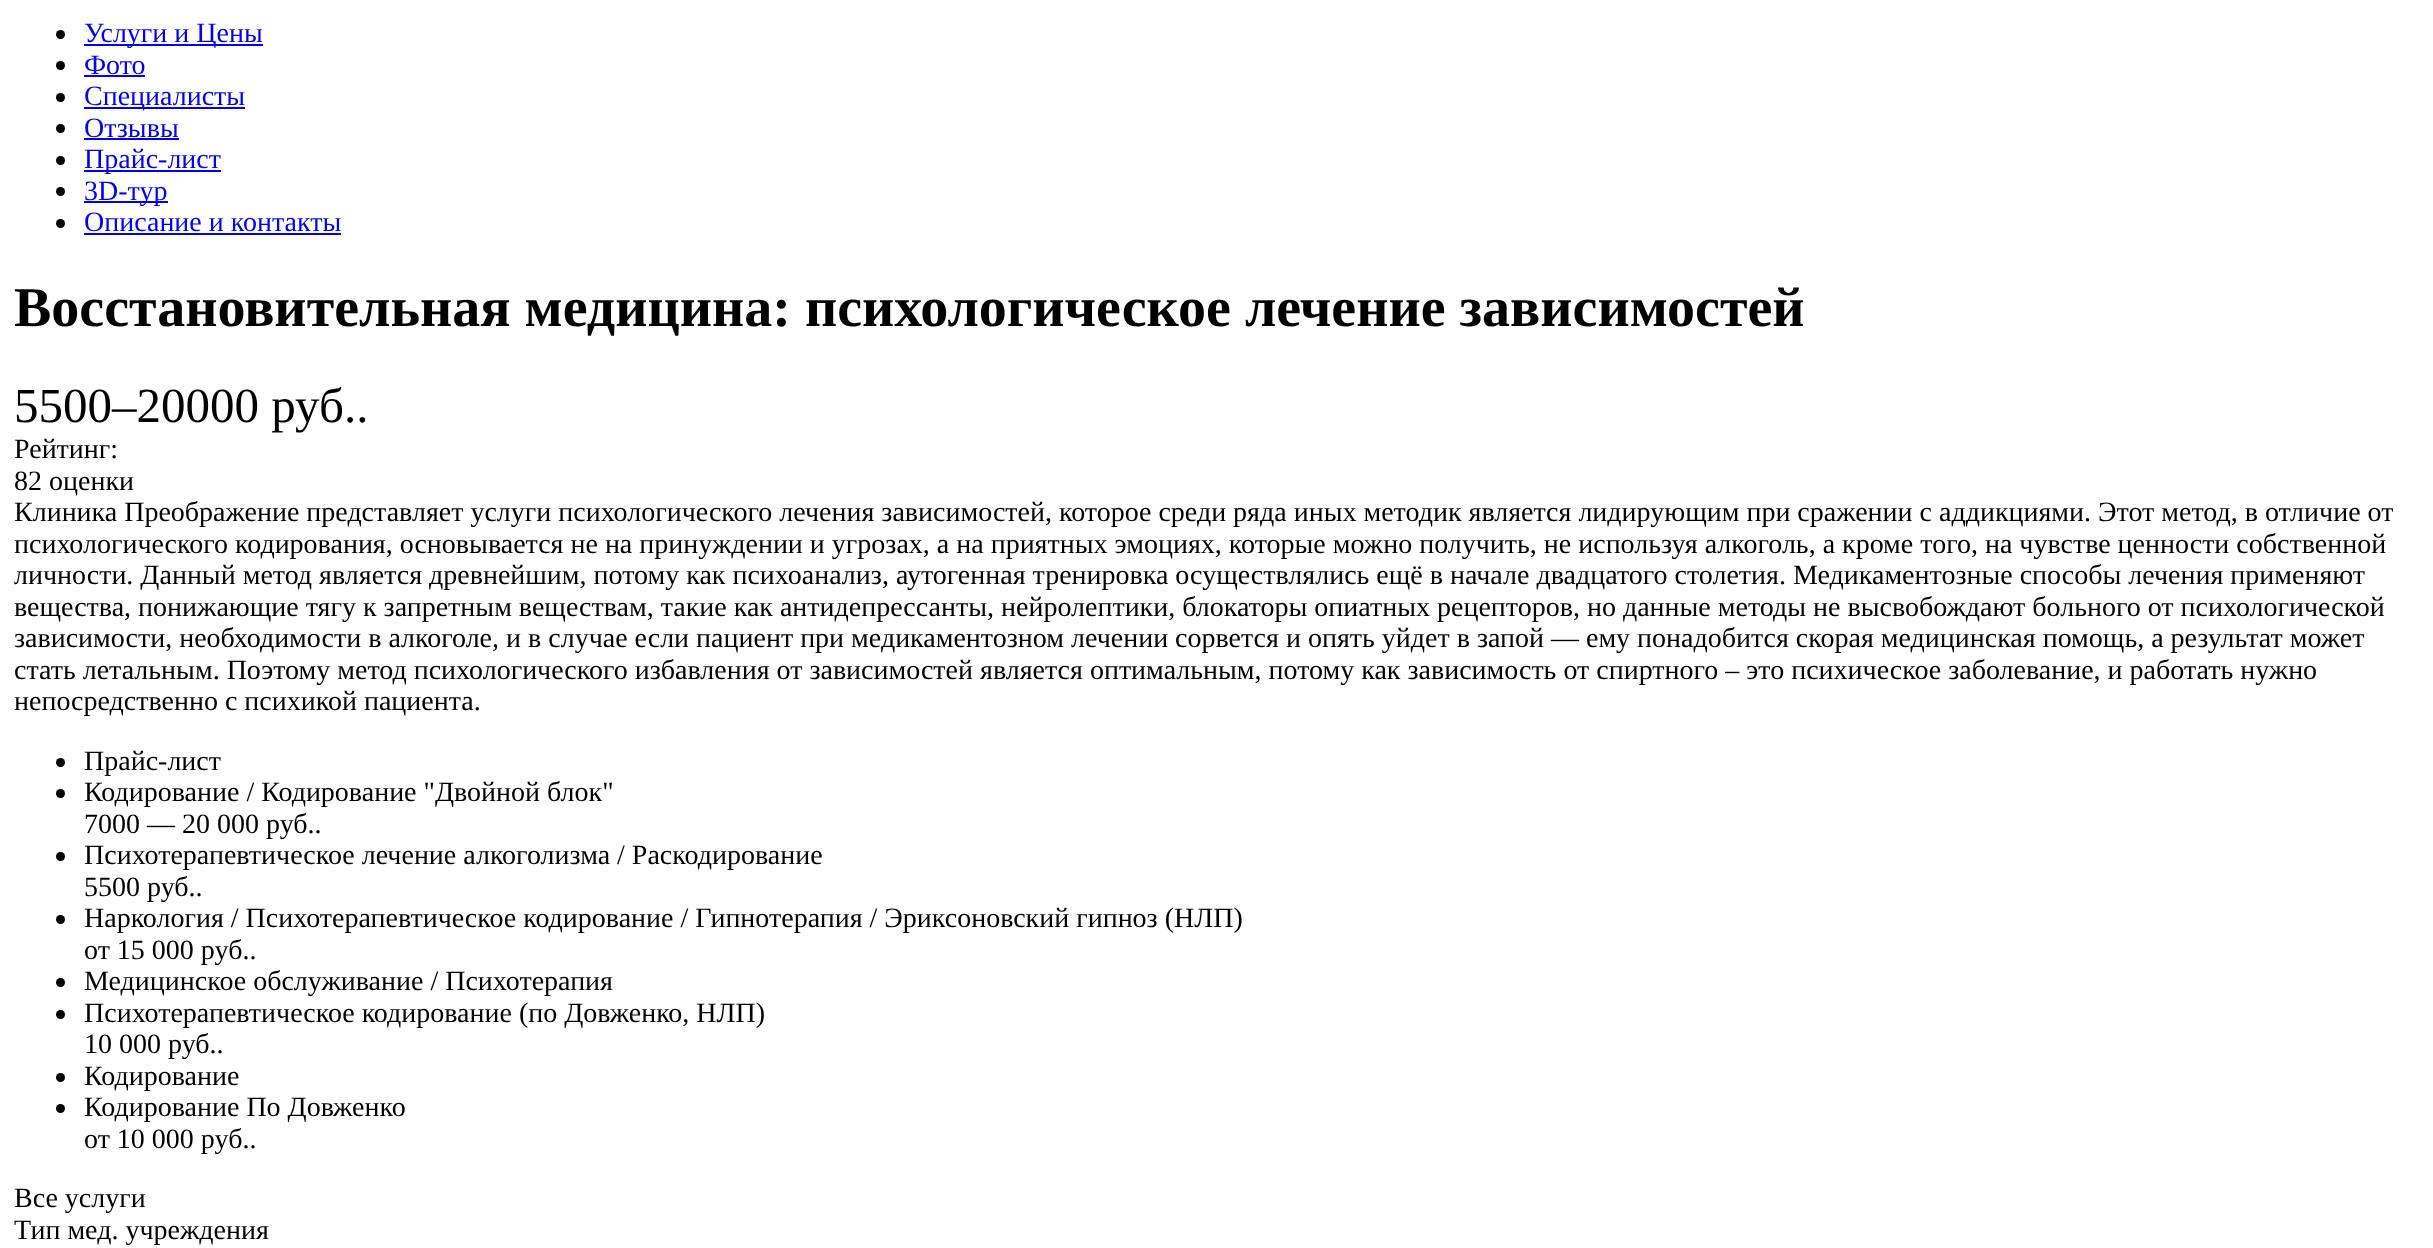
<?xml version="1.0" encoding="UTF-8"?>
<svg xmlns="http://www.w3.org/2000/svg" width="2433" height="1248">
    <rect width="100%" height="100%" fill="#FFFFFF"/>
    <circle cx="60.5" cy="34.5" r="4.5" fill="#000000"/>
    <rect x="84" y="44" width="179" height="2" fill="#0000EE"/>
    <text x="84" y="42" font-family="Liberation Serif" font-size="28" fill="#0000EE">Услуги и Цены</text>
    <circle cx="60.5" cy="65.5" r="4.5" fill="#000000"/>
    <text x="84" y="74" font-family="Liberation Serif" font-size="28" fill="#0000EE">Фото</text>
    <rect x="84" y="75" width="61" height="2" fill="#0000EE"/>
    <circle cx="60.5" cy="97.5" r="4.5" fill="#000000"/>
    <rect x="84" y="107" width="161" height="2" fill="#0000EE"/>
    <text x="84" y="105" font-family="Liberation Serif" font-size="28" fill="#0000EE">Специалисты</text>
    <circle cx="60.5" cy="128.5" r="4.5" fill="#000000"/>
    <text x="84" y="137" font-family="Liberation Serif" font-size="28" fill="#0000EE">Отзывы</text>
    <rect x="84" y="138" width="95" height="2" fill="#0000EE"/>
    <circle cx="60.5" cy="160.5" r="4.5" fill="#000000"/>
    <rect x="84" y="170" width="137" height="2" fill="#0000EE"/>
    <text x="84" y="168" font-family="Liberation Serif" font-size="28" fill="#0000EE">Прайс-лист</text>
    <circle cx="60.5" cy="191.5" r="4.5" fill="#000000"/>
    <rect x="84" y="201" width="84" height="2" fill="#0000EE"/>
    <text x="84" y="200" font-family="Liberation Serif" font-size="28" fill="#0000EE">3D-тур</text>
    <circle cx="60.5" cy="223.5" r="4.5" fill="#000000"/>
    <text x="84" y="231" font-family="Liberation Serif" font-size="28" fill="#0000EE">Описание и контакты</text>
    <rect x="84" y="233" width="257" height="2" fill="#0000EE"/>
    <text x="14" y="326" font-family="Liberation Serif" font-size="56" font-weight="700" fill="#000000">Восстановительная медицина: психологическое лечение зависимостей</text>
    <text x="14" y="422" font-family="Liberation Serif" font-size="49" fill="#000000">5500–20000 руб..</text>
    <text font-family="Liberation Serif" font-size="28" fill="#000000">
        <tspan x="14" y="458">Рейтинг:</tspan>
        <tspan x="14" y="490">82 оценки</tspan>
        <tspan x="14" y="521">Клиника Преображение представляет услуги психологического лечения зависимостей, которое среди ряда иных методик является лидирующим при сражении с аддикциями. Этот метод, в отличие от</tspan>
        <tspan x="14" y="553">психологического кодирования, основывается не на принуждении и угрозах, а на приятных эмоциях, которые можно получить, не используя алкоголь, а кроме того, на чувстве ценности собственной</tspan>
        <tspan x="14" y="584">личности. Данный метод является древнейшим, потому как психоанализ, аутогенная тренировка осуществлялись ещё в начале двадцатого столетия. Медикаментозные способы лечения применяют</tspan>
        <tspan x="14" y="616">вещества, понижающие тягу к запретным веществам, такие как антидепрессанты, нейролептики, блокаторы опиатных рецепторов, но данные методы не высвобождают больного от психологической</tspan>
        <tspan x="14" y="647">зависимости, необходимости в алкоголе, и в случае если пациент при медикаментозном лечении сорвется и опять уйдет в запой — ему понадобится скорая медицинская помощь, а результат может</tspan>
        <tspan x="14" y="679">стать летальным. Поэтому метод психологического избавления от зависимостей является оптимальным, потому как зависимость от спиртного – это психическое заболевание, и работать нужно</tspan>
        <tspan x="14" y="710">непосредственно с психикой пациента.</tspan>
    </text>
    <circle cx="60.5" cy="762.5" r="4.5" fill="#000000"/>
    <text x="84" y="770" font-family="Liberation Serif" font-size="28" fill="#000000">Прайс-лист</text>
    <circle cx="60.5" cy="793.5" r="4.5" fill="#000000"/>
    <text font-family="Liberation Serif" font-size="28" fill="#000000">
        <tspan x="84" y="801">Кодирование / Кодирование "Двойной блок"</tspan>
        <tspan x="84" y="833">7000 — 20 000 руб..</tspan>
    </text>
    <circle cx="60.5" cy="856.5" r="4.5" fill="#000000"/>
    <text font-family="Liberation Serif" font-size="28" fill="#000000">
        <tspan x="84" y="864">Психотерапевтическое лечение алкоголизма / Раскодирование</tspan>
        <tspan x="84" y="896">5500 руб..</tspan>
    </text>
    <circle cx="60.5" cy="919.5" r="4.5" fill="#000000"/>
    <text font-family="Liberation Serif" font-size="28" fill="#000000">
        <tspan x="84" y="927">Наркология / Психотерапевтическое кодирование / Гипнотерапия / Эриксоновский гипноз (НЛП)</tspan>
        <tspan x="84" y="959">от 15 000 руб..</tspan>
    </text>
    <circle cx="60.5" cy="982.5" r="4.5" fill="#000000"/>
    <text x="84" y="990" font-family="Liberation Serif" font-size="28" fill="#000000">Медицинское обслуживание / Психотерапия</text>
    <circle cx="60.5" cy="1014.5" r="4.5" fill="#000000"/>
    <text font-family="Liberation Serif" font-size="28" fill="#000000">
        <tspan x="84" y="1022">Психотерапевтическое кодирование (по Довженко, НЛП)</tspan>
        <tspan x="84" y="1053">10 000 руб..</tspan>
    </text>
    <circle cx="60.5" cy="1077.5" r="4.5" fill="#000000"/>
    <text x="84" y="1085" font-family="Liberation Serif" font-size="28" fill="#000000">Кодирование</text>
    <circle cx="60.5" cy="1108.5" r="4.5" fill="#000000"/>
    <text font-family="Liberation Serif" font-size="28" fill="#000000">
        <tspan x="84" y="1116">Кодирование По Довженко</tspan>
        <tspan x="84" y="1148">от 10 000 руб..</tspan>
    </text>
    <text font-family="Liberation Serif" font-size="28" fill="#000000">
        <tspan x="14" y="1207">Все услуги</tspan>
        <tspan x="14" y="1239">Тип мед. учреждения</tspan>
    </text>
</svg>
